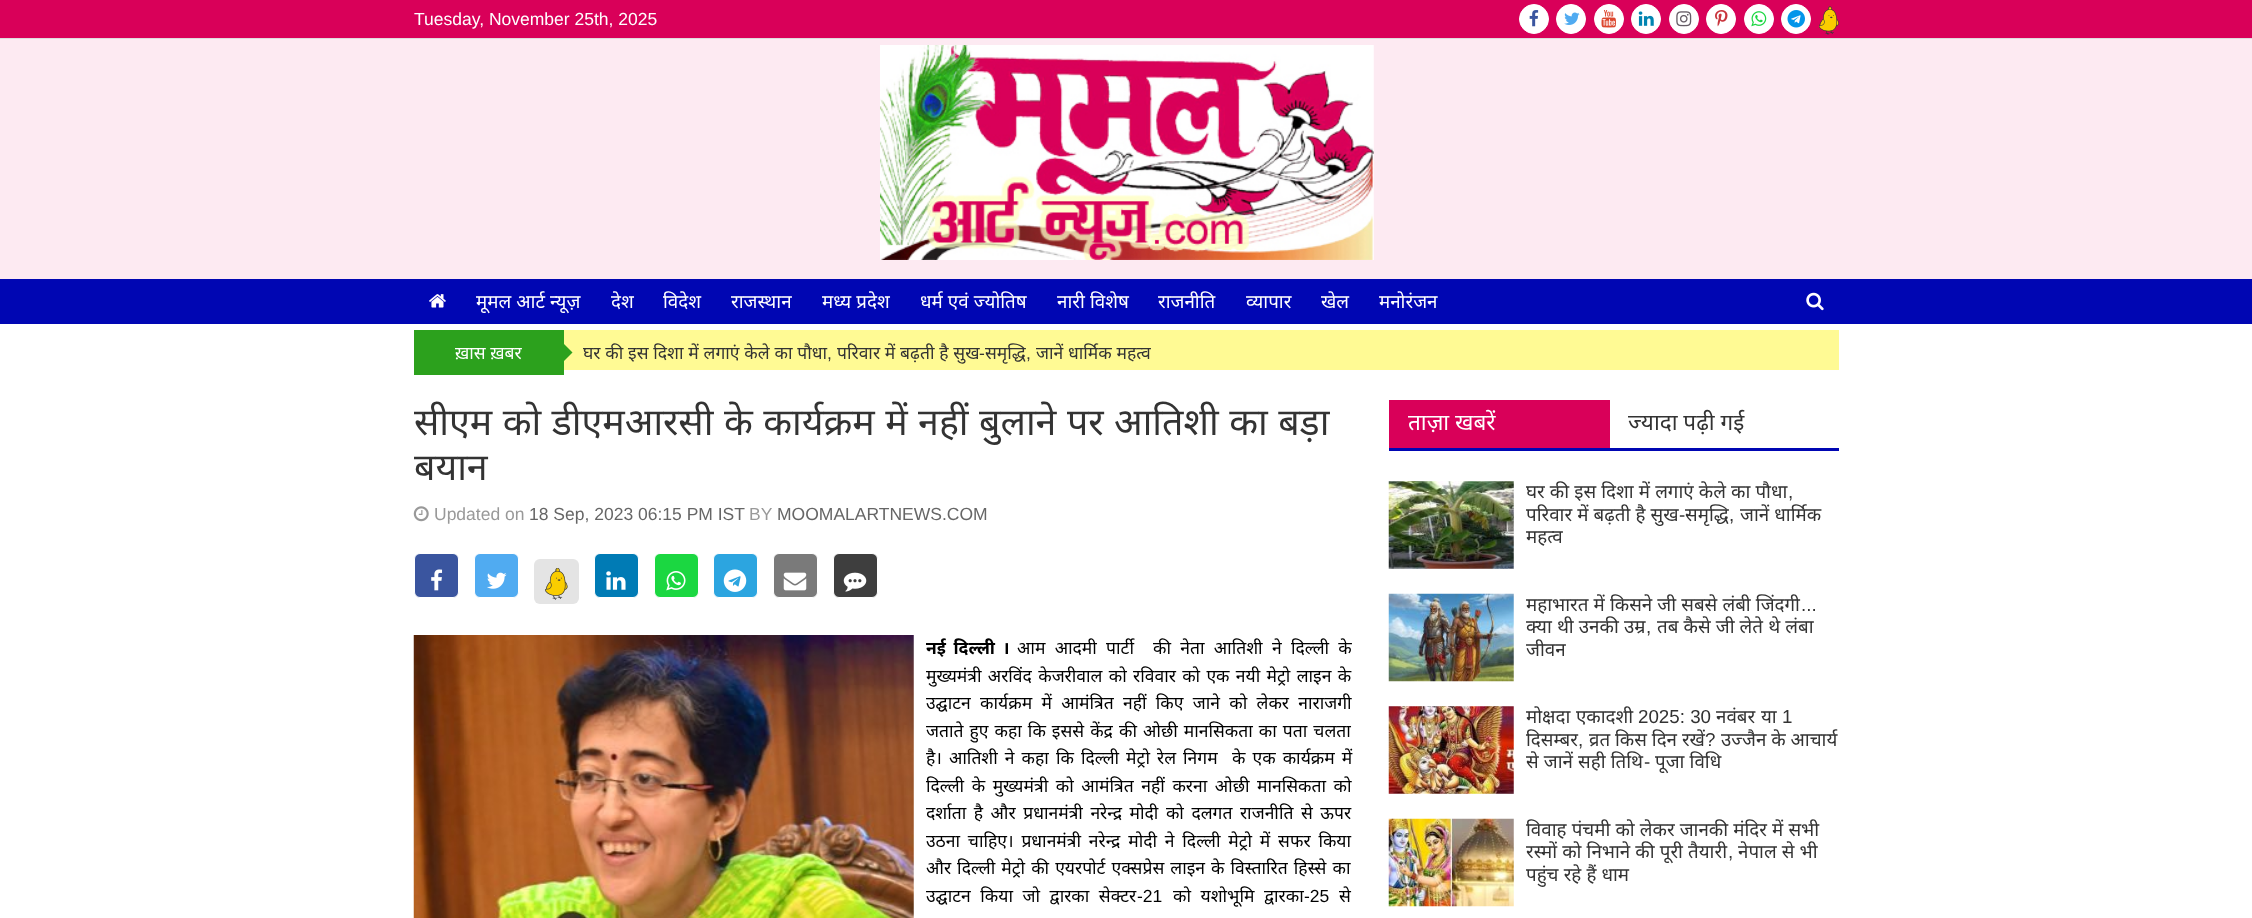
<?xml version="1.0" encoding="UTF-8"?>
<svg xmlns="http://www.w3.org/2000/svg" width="2252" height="918">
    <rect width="100%" height="100%" fill="#FFFFFF"/>
    <rect x="0" y="0" width="2252" height="38" fill="#D90059"/>
    <rect x="0" y="38" width="2252" height="1" fill="#DDDDDD"/>
    <text x="414" y="25" font-family="Liberation Sans" font-size="17.5" fill="#FFFFFF">Tuesday, November 25th, 2025</text>
    <circle cx="1534" cy="19" r="14.5" fill="#FFFFFF" stroke="#FFFFFF"/>
    <image x="1529" y="10" width="10" height="17" href="img_01.png"/>
    <circle cx="1571" cy="19" r="14.5" fill="#FFFFFF" stroke="#FFFFFF"/>
    <image x="1564" y="12" width="16" height="13" href="img_02.png"/>
    <circle cx="1609" cy="19" r="14.5" fill="#FFFFFF" stroke="#FFFFFF"/>
    <image x="1601" y="10" width="15" height="18" href="img_03.png"/>
    <circle cx="1646" cy="19" r="14.5" fill="#FFFFFF" stroke="#FFFFFF"/>
    <image x="1638" y="11" width="16" height="15" href="img_04.png"/>
    <circle cx="1684" cy="19" r="14.5" fill="#FFFFFF" stroke="#FFFFFF"/>
    <image x="1676" y="11" width="16" height="16" href="img_05.png"/>
    <circle cx="1721" cy="19" r="14.5" fill="#FFFFFF" stroke="#FFFFFF"/>
    <image x="1715" y="10" width="13" height="17" href="img_06.png"/>
    <circle cx="1759" cy="19" r="14.5" fill="#FFFFFF" stroke="#FFFFFF"/>
    <image x="1751" y="11" width="16" height="16" href="img_07.png"/>
    <circle cx="1796" cy="19" r="14.5" fill="#FFFFFF" stroke="#FFFFFF"/>
    <image x="1787" y="10" width="18" height="18" href="img_08.png"/>
    <image x="1819" y="6" width="20" height="29" href="img_09.png"/>
    <rect x="0" y="39" width="2252" height="240" fill="#FDEAF2"/>
    <image x="880" y="45" width="494" height="215" href="img_10.png"/>
    <rect x="0" y="279" width="2252" height="45" fill="#0006B3"/>
    <image x="429" y="294" width="17" height="14" href="img_11.png"/>
    <text x="476" y="308" word-spacing="0.25" font-family="Noto Sans" font-size="18.75" fill="#FFFFFF">मूमल आर्ट न्यूज़</text>
    <text x="611" y="308" font-family="Noto Sans" font-size="18.75" fill="#FFFFFF">देश</text>
    <text x="663" y="308" font-family="Noto Sans" font-size="18.75" fill="#FFFFFF">विदेश</text>
    <text x="731" y="308" font-family="Noto Sans" font-size="18.75" fill="#FFFFFF">राजस्थान</text>
    <text x="822" y="308" word-spacing="0.25" font-family="Noto Sans" font-size="18.75" fill="#FFFFFF">मध्य प्रदेश</text>
    <text x="920" y="308" word-spacing="0.25" font-family="Noto Sans" font-size="18.75" fill="#FFFFFF">धर्म एवं ज्योतिष</text>
    <text x="1057" y="308" word-spacing="0.25" font-family="Noto Sans" font-size="18.75" fill="#FFFFFF">नारी विशेष</text>
    <text x="1158" y="308" font-family="Noto Sans" font-size="18.75" fill="#FFFFFF">राजनीति</text>
    <text x="1246" y="308" font-family="Noto Sans" font-size="18.75" fill="#FFFFFF">व्यापार</text>
    <text x="1321" y="308" font-family="Noto Sans" font-size="18.75" fill="#FFFFFF">खेल</text>
    <text x="1379" y="308" font-family="Noto Sans" font-size="18.75" fill="#FFFFFF">मनोरंजन</text>
    <image x="1806" y="292" width="18" height="19" href="img_12.png"/>
    <rect x="414" y="330" width="150" height="45" fill="#2CA11D"/>
    <text x="455" y="359" font-family="Noto Sans" font-size="17.5" fill="#FFFFFF">ख़ास ख़बर</text>
    <rect x="564" y="330" width="1275" height="40" fill="#FFFA94"/>
    <path d="M 559 366 V 339 L 572.5 352.5 Z" fill="#2CA11D"/>
    <text x="583" y="359" word-spacing="0.25" font-family="Noto Sans" font-size="17.5" fill="#333333">घर की इस दिशा में लगाएं केले का पौधा</text>
    <text x="837" y="359" word-spacing="0.25" font-family="Noto Sans" font-size="17.5" fill="#333333">परिवार में बढ़ती है सुख</text>
    <text x="979" y="359" font-family="Liberation Sans" font-size="17.5" fill="#333333">-</text>
    <text x="985" y="359" font-family="Noto Sans" font-size="17.5" fill="#333333">समृद्धि</text>
    <text x="1036" y="359" word-spacing="0.25" font-family="Noto Sans" font-size="17.5" fill="#333333">जानें धार्मिक महत्व</text>
    <text x="827" y="359" font-family="Liberation Sans" font-size="17.5" fill="#333333">,</text>
    <text x="1026" y="359" font-family="Liberation Sans" font-size="17.5" fill="#333333">,</text>
    <text font-family="Noto Sans" font-size="37.5" fill="#333333">
        <tspan x="414" y="435" word-spacing="0.75">सीएम को डीएमआरसी के कार्यक्रम में नहीं बुलाने पर आतिशी का बड़ा</tspan>
        <tspan x="414" y="480">बयान</tspan>
    </text>
    <image x="413" y="506" width="16" height="16" href="img_13.png"/>
    <text x="434" y="520" font-family="Liberation Sans" font-size="17.5" fill="#999999">Updated on</text>
    <text x="529" y="520" font-family="Liberation Sans" font-size="17.5" fill="#666666">18 Sep, 2023 06:15 PM IST</text>
    <text x="749" y="520" font-family="Liberation Sans" font-size="17.5" fill="#999999">BY</text>
    <text x="777" y="520" font-family="Liberation Sans" font-size="17.5" fill="#666666">MOOMALARTNEWS.COM</text>
    <rect x="414.5" y="553.5" width="44" height="44" rx="5.5" fill="#3A559F" stroke="#FFFFFF"/>
    <image x="431" y="569" width="12" height="22" href="img_14.png"/>
    <rect x="474.5" y="553.5" width="44" height="44" rx="5.5" fill="#50ABF1" stroke="#FFFFFF"/>
    <image x="487" y="572" width="20" height="17" href="img_15.png"/>
    <rect x="534" y="559" width="45" height="45" rx="6" fill="#E4E4E4"/>
    <image x="545" y="568" width="23" height="32" href="img_16.png"/>
    <rect x="594.5" y="553.5" width="44" height="44" rx="5.5" fill="#007BB5" stroke="#FFFFFF"/>
    <image x="606" y="571" width="20" height="19" href="img_17.png"/>
    <rect x="654.5" y="553.5" width="44" height="44" rx="5.5" fill="#1BD741" stroke="#FFFFFF"/>
    <image x="666" y="571" width="20" height="20" href="img_18.png"/>
    <rect x="713.5" y="553.5" width="44" height="44" rx="5.5" fill="#2CA5E0" stroke="#FFFFFF"/>
    <image x="723" y="569" width="24" height="23" href="img_19.png"/>
    <rect x="773.5" y="553.5" width="44" height="44" rx="5.5" fill="#7A7A7A" stroke="#FFFFFF"/>
    <image x="783" y="572" width="24" height="19" href="img_20.png"/>
    <rect x="833.5" y="553.5" width="44" height="44" rx="5.5" fill="#3E3E3E" stroke="#FFFFFF"/>
    <image x="843" y="572" width="24" height="20" href="img_21.png"/>
    <image x="413" y="635" width="501" height="283" href="img_22.png"/>
    <text x="926" y="654" word-spacing="3" font-family="Noto Sans" font-size="17.5" font-weight="700" fill="#000000">नई दिल्ली ।</text>
    <text x="1017" y="654" word-spacing="4.75" font-family="Noto Sans" font-size="17.5" fill="#000000">आम आदमी पार्टी</text>
    <text x="1153" y="654" word-spacing="4.75" font-family="Noto Sans" font-size="17.5" fill="#000000">की नेता आतिशी ने दिल्ली के</text>
    <text font-family="Noto Sans" font-size="17.5" fill="#000000">
        <tspan x="926" y="682" word-spacing="1.75">मुख्यमंत्री अरविंद केजरीवाल को रविवार को एक नयी मेट्रो लाइन के</tspan>
        <tspan x="926" y="709" word-spacing="4.75">उद्घाटन कार्यक्रम में आमंत्रित नहीं किए जाने को लेकर नाराजगी</tspan>
        <tspan x="926" y="737" word-spacing="1.5">जताते हुए कहा कि इससे केंद्र की ओछी मानसिकता का पता चलता</tspan>
        <tspan x="926" y="764" word-spacing="2.5">है। आतिशी ने कहा कि दिल्ली मेट्रो रेल निगम</tspan>
    </text>
    <text x="1232" y="764" word-spacing="2.5" font-family="Noto Sans" font-size="17.5" fill="#000000">के एक कार्यक्रम में</text>
    <text font-family="Noto Sans" font-size="17.5" fill="#000000">
        <tspan x="926" y="792" word-spacing="3">दिल्ली के मुख्यमंत्री को आमंत्रित नहीं करना ओछी मानसिकता को</tspan>
        <tspan x="926" y="819" word-spacing="3">दर्शाता है और प्रधानमंत्री नरेन्द्र मोदी को दलगत राजनीति से ऊपर</tspan>
        <tspan x="926" y="847" word-spacing="3.25">उठना चाहिए। प्रधानमंत्री नरेन्द्र मोदी ने दिल्ली मेट्रो में सफर किया</tspan>
        <tspan x="926" y="874" word-spacing="1.5">और दिल्ली मेट्रो की एयरपोर्ट एक्सप्रेस लाइन के विस्तारित हिस्से का</tspan>
        <tspan x="926" y="902" word-spacing="5">उद्घाटन किया जो द्वारका सेक्टर</tspan>
    </text>
    <text x="1137" y="902" font-family="Liberation Sans" font-size="17.5" fill="#000000">-21</text>
    <text x="1173" y="902" word-spacing="5" font-family="Noto Sans" font-size="17.5" fill="#000000">को यशोभूमि द्वारका</text>
    <text x="1304" y="902" font-family="Liberation Sans" font-size="17.5" fill="#000000">-25</text>
    <text x="1339" y="902" font-family="Noto Sans" font-size="17.5" fill="#000000">से</text>
    <rect x="1389" y="448" width="450" height="3" fill="#0006B3"/>
    <rect x="1389" y="400" width="221" height="48" fill="#D90059"/>
    <text x="1408" y="430" font-family="Noto Sans" font-size="22.5" fill="#FFFFFF">ताज़ा खबरें</text>
    <text x="1628" y="430" font-family="Noto Sans" font-size="22.5" fill="#333333">ज्यादा पढ़ी गई</text>
    <image x="1388" y="481" width="126" height="88" href="img_23.png"/>
    <text x="1526" y="498" word-spacing="0.25" font-family="Noto Sans" font-size="18.75" fill="#333333">घर की इस दिशा में लगाएं केले का पौधा</text>
    <text x="1788" y="498" font-family="Liberation Sans" font-size="18.75" fill="#333333">,</text>
    <text x="1526" y="521" word-spacing="0.25" font-family="Noto Sans" font-size="18.75" fill="#333333">परिवार में बढ़ती है सुख</text>
    <text x="1679" y="521" font-family="Liberation Sans" font-size="18.75" fill="#333333">-</text>
    <text x="1685" y="521" font-family="Noto Sans" font-size="18.75" fill="#333333">समृद्धि</text>
    <text x="1740" y="521" word-spacing="0.25" font-family="Noto Sans" font-size="18.75" fill="#333333">जानें धार्मिक</text>
    <text x="1729" y="521" font-family="Liberation Sans" font-size="18.75" fill="#333333">,</text>
    <text x="1526" y="543" font-family="Noto Sans" font-size="18.75" fill="#333333">महत्व</text>
    <image x="1388" y="593" width="126" height="89" href="img_24.png"/>
    <text x="1526" y="611" word-spacing="0.25" font-family="Noto Sans" font-size="18.75" fill="#333333">महाभारत में किसने जी सबसे लंबी जिंदगी</text>
    <text x="1801" y="611" font-family="Liberation Sans" font-size="18.75" fill="#333333">...</text>
    <text x="1526" y="633" word-spacing="0.25" font-family="Noto Sans" font-size="18.75" fill="#333333">क्या थी उनकी उम्र</text>
    <text x="1646" y="633" font-family="Liberation Sans" font-size="18.75" fill="#333333">,</text>
    <text x="1657" y="633" word-spacing="0.25" font-family="Noto Sans" font-size="18.75" fill="#333333">तब कैसे जी लेते थे लंबा</text>
    <text x="1526" y="656" font-family="Noto Sans" font-size="18.75" fill="#333333">जीवन</text>
    <image x="1388" y="706" width="126" height="88" href="img_25.png"/>
    <text x="1526" y="723" font-family="Noto Sans" font-size="18.75" fill="#333333">मोक्षदा</text>
    <text x="1576" y="723" font-family="Noto Sans" font-size="18.75" fill="#333333">एकादशी</text>
    <text x="1638" y="723" font-family="Liberation Sans" font-size="18.75" fill="#333333">2025: 30</text>
    <text x="1716" y="723" font-family="Noto Sans" font-size="18.75" fill="#333333">नवंबर</text>
    <text x="1761" y="723" font-family="Noto Sans" font-size="18.75" fill="#333333">या</text>
    <text x="1782" y="723" font-family="Liberation Sans" font-size="18.75" fill="#333333">1</text>
    <text x="1526" y="746" font-family="Noto Sans" font-size="18.75" fill="#333333">दिसम्बर</text>
    <text x="1589" y="746" font-family="Noto Sans" font-size="18.75" fill="#333333">व्रत किस दिन रखें</text>
    <text x="1705" y="746" font-family="Liberation Sans" font-size="18.75" fill="#333333">?</text>
    <text x="1721" y="746" font-family="Noto Sans" font-size="18.75" fill="#333333">उज्जैन के आचार्य</text>
    <text x="1578" y="746" font-family="Liberation Sans" font-size="18.75" fill="#333333">,</text>
    <text x="1526" y="768" word-spacing="0.25" font-family="Noto Sans" font-size="18.75" fill="#333333">से जानें सही तिथि</text>
    <text x="1644" y="768" font-family="Liberation Sans" font-size="18.75" fill="#333333">-</text>
    <text x="1655" y="768" word-spacing="0.25" font-family="Noto Sans" font-size="18.75" fill="#333333">पूजा विधि</text>
    <image x="1388" y="818" width="126" height="89" href="img_26.png"/>
    <text font-family="Noto Sans" font-size="18.75" fill="#333333">
        <tspan x="1526" y="836" word-spacing="0.25">विवाह पंचमी को लेकर जानकी मंदिर में सभी</tspan>
        <tspan x="1526" y="858" word-spacing="0.25">रस्मों को निभाने की पूरी तैयारी</tspan>
    </text>
    <text x="1728" y="858" font-family="Liberation Sans" font-size="18.75" fill="#333333">,</text>
    <text x="1738" y="858" word-spacing="0.25" font-family="Noto Sans" font-size="18.75" fill="#333333">नेपाल से भी</text>
    <text x="1526" y="881" word-spacing="0.25" font-family="Noto Sans" font-size="18.75" fill="#333333">पहुंच रहे हैं धाम</text>
</svg>
